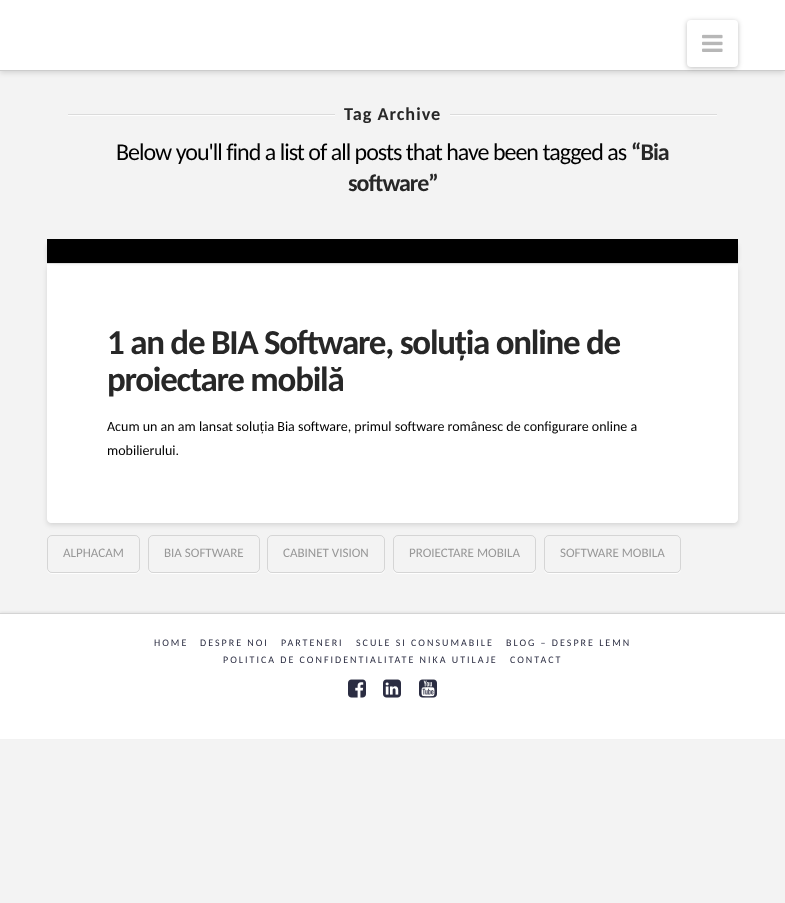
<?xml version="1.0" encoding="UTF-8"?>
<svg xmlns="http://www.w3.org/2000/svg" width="785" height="903">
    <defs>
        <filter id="blur1" x="-50%" y="-200%" width="200%" height="500%"><feGaussianBlur stdDeviation="2.5"/></filter>
        <filter id="blur2" x="-50%" y="-200%" width="200%" height="500%"><feGaussianBlur stdDeviation="2"/></filter>
        <clipPath id="clip1"><path d="M 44 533 H 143 V 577 H 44 Z M 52 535 H 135 C 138 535 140 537 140 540 V 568 C 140 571 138 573 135 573 H 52 C 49 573 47 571 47 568 V 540 C 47 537 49 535 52 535 Z" clip-rule="evenodd"/></clipPath>
        <filter id="blur3" x="-50%" y="-200%" width="200%" height="500%"><feGaussianBlur stdDeviation="0.5"/></filter>
        <clipPath id="clip2"><path d="M 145 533 H 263 V 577 H 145 Z M 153 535 H 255 C 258 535 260 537 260 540 V 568 C 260 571 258 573 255 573 H 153 C 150 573 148 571 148 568 V 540 C 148 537 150 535 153 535 Z" clip-rule="evenodd"/></clipPath>
        <clipPath id="clip3"><path d="M 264 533 H 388 V 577 H 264 Z M 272 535 H 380 C 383 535 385 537 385 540 V 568 C 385 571 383 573 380 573 H 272 C 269 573 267 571 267 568 V 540 C 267 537 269 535 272 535 Z" clip-rule="evenodd"/></clipPath>
        <clipPath id="clip4"><path d="M 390 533 H 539 V 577 H 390 Z M 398 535 H 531 C 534 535 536 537 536 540 V 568 C 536 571 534 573 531 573 H 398 C 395 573 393 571 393 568 V 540 C 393 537 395 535 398 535 Z" clip-rule="evenodd"/></clipPath>
        <clipPath id="clip5"><path d="M 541 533 H 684 V 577 H 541 Z M 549 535 H 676 C 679 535 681 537 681 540 V 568 C 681 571 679 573 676 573 H 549 C 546 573 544 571 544 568 V 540 C 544 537 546 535 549 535 Z" clip-rule="evenodd"/></clipPath>
        <filter id="blur4" x="-50%" y="-200%" width="200%" height="500%"><feGaussianBlur stdDeviation="1"/></filter>
    </defs>
    <rect width="100%" height="100%" fill="#F3F3F3"/>
    <rect x="0" y="2" width="785" height="71" fill="#000000" fill-opacity="0.13" filter="url(#blur1)"/>
    <rect x="0" y="0" width="785" height="70" fill="#FFFFFF"/>
    <rect x="0" y="70" width="785" height="1" fill="#CCCCCC"/>
    <rect x="687" y="21" width="51" height="47" rx="4" fill="#000000" fill-opacity="0.25" filter="url(#blur1)"/>
    <rect x="687" y="20" width="51" height="47" rx="4" fill="#FFFFFF"/>
    <image x="702" y="34" width="21" height="18" href="img_01.png"/>
    <rect x="68" y="115" width="267" height="1" fill="#FDFDFD"/>
    <rect x="68" y="114" width="267" height="1" fill="#DBDBDB"/>
    <text x="344" y="120" font-family="Carlito" font-size="18.25" font-weight="700" letter-spacing="1" fill="#272727">Tag Archive</text>
    <rect x="450" y="115" width="267" height="1" fill="#FDFDFD"/>
    <rect x="450" y="114" width="267" height="1" fill="#DBDBDB"/>
    <text x="116" y="160" font-family="Carlito" font-size="24" letter-spacing="-1" fill="#000000">Below you'll find a list of all posts that have been tagged as</text>
    <text x="631" y="160" font-family="Carlito" font-size="24" font-weight="700" letter-spacing="-1" fill="#272727">“Bia</text>
    <text x="348" y="191" font-family="Carlito" font-size="24" font-weight="700" letter-spacing="-1" fill="#272727">software”</text>
    <rect x="47" y="266" width="691" height="259" rx="4" fill="#000000" fill-opacity="0.13" filter="url(#blur1)"/>
    <path d="M 47 264 H 738 V 519 C 738 521 736 523 734 523 H 51 C 49 523 47 521 47 519 Z" fill="#FFFFFF"/>
    <rect x="47" y="245" width="683" height="17" fill="#000000" fill-opacity="0.13" filter="url(#blur2)"/>
    <rect x="55" y="245" width="683" height="17" fill="#000000" fill-opacity="0.13" filter="url(#blur2)"/>
    <rect x="47" y="263" width="691" height="1" fill="#DDDDDD"/>
    <rect x="47" y="239" width="691" height="24" fill="#000000"/>
    <text font-family="Carlito" font-size="35" font-weight="700" letter-spacing="-1.25" fill="#272727">
        <tspan x="107" y="354">1 an de BIA Software, soluția online de</tspan>
        <tspan x="107" y="391">proiectare mobilă</tspan>
    </text>
    <text font-family="Carlito" font-size="14" fill="#000000">
        <tspan x="107" y="431">Acum un an am lansat soluția Bia software, primul software românesc de configurare online a</tspan>
        <tspan x="107" y="455">mobilierului.</tspan>
    </text>
    <g clip-path="url(#clip1)">
        <rect x="47" y="536" width="93" height="38" rx="5" fill="#FFFFFF" fill-opacity="0.95" filter="url(#blur3)"/>
    </g>
    <rect x="47.5" y="535.5" width="92" height="37" rx="4.5" fill="none" stroke="#000000" stroke-opacity="0.12"/>
    <text x="63" y="557" font-family="Carlito" font-size="13" fill="#989898">ALPHACAM</text>
    <g clip-path="url(#clip2)">
        <rect x="148" y="536" width="112" height="38" rx="5" fill="#FFFFFF" fill-opacity="0.95" filter="url(#blur3)"/>
    </g>
    <rect x="148.5" y="535.5" width="111" height="37" rx="4.5" fill="none" stroke="#000000" stroke-opacity="0.12"/>
    <text x="164" y="557" font-family="Carlito" font-size="13" fill="#989898">BIA SOFTWARE</text>
    <g clip-path="url(#clip3)">
        <rect x="267" y="536" width="118" height="38" rx="5" fill="#FFFFFF" fill-opacity="0.95" filter="url(#blur3)"/>
    </g>
    <rect x="267.5" y="535.5" width="117" height="37" rx="4.5" fill="none" stroke="#000000" stroke-opacity="0.12"/>
    <text x="283" y="557" font-family="Carlito" font-size="13" fill="#989898">CABINET VISION</text>
    <g clip-path="url(#clip4)">
        <rect x="393" y="536" width="143" height="38" rx="5" fill="#FFFFFF" fill-opacity="0.95" filter="url(#blur3)"/>
    </g>
    <rect x="393.5" y="535.5" width="142" height="37" rx="4.5" fill="none" stroke="#000000" stroke-opacity="0.12"/>
    <text x="409" y="557" font-family="Carlito" font-size="13" fill="#989898">PROIECTARE MOBILA</text>
    <g clip-path="url(#clip5)">
        <rect x="544" y="536" width="137" height="38" rx="5" fill="#FFFFFF" fill-opacity="0.95" filter="url(#blur3)"/>
    </g>
    <rect x="544.5" y="535.5" width="136" height="37" rx="4.5" fill="none" stroke="#000000" stroke-opacity="0.12"/>
    <text x="560" y="557" font-family="Carlito" font-size="13" fill="#989898">SOFTWARE MOBILA</text>
    <rect x="0" y="612" width="785" height="126" fill="#000000" fill-opacity="0.07" filter="url(#blur4)"/>
    <rect x="0" y="614" width="785" height="125" fill="#FFFFFF"/>
    <rect x="0" y="613" width="785" height="1" fill="#D4D4D4"/>
    <text x="154" y="646" font-family="Carlito" font-size="10" letter-spacing="2" fill="#2B2D42">HOME</text>
    <text x="200" y="646" font-family="Carlito" font-size="10" letter-spacing="2" fill="#2B2D42">DESPRE NOI</text>
    <text x="281" y="646" font-family="Carlito" font-size="10" letter-spacing="2" fill="#2B2D42">PARTENERI</text>
    <text x="356" y="646" font-family="Carlito" font-size="10" letter-spacing="2" fill="#2B2D42">SCULE SI CONSUMABILE</text>
    <text x="506" y="646" font-family="Carlito" font-size="10" letter-spacing="2" fill="#2B2D42">BLOG – DESPRE LEMN</text>
    <text x="223" y="663" font-family="Carlito" font-size="10" letter-spacing="2" fill="#2B2D42">POLITICA DE CONFIDENTIALITATE NIKA UTILAJE</text>
    <text x="510" y="663" font-family="Carlito" font-size="10" letter-spacing="2" fill="#2B2D42">CONTACT</text>
    <image x="348" y="679" width="18" height="19" href="img_02.png"/>
    <image x="383" y="679" width="18" height="19" href="img_03.png"/>
    <image x="419" y="679" width="18" height="19" href="img_04.png"/>
</svg>
